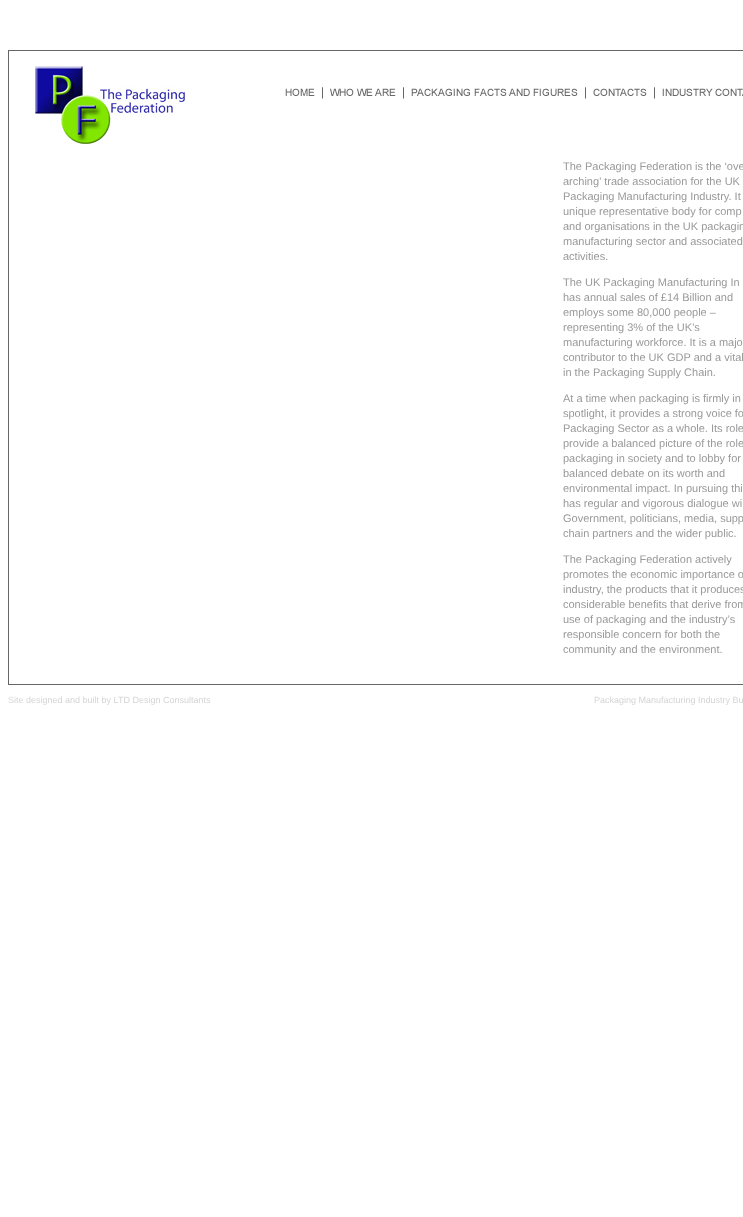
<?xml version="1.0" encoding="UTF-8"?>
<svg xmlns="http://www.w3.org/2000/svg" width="743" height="1217">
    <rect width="100%" height="100%" fill="#FFFFFF"/>
    <rect x="8" y="50" width="735" height="635" fill="#666666"/>
    <rect x="9" y="51" width="734" height="633" fill="#FFFFFF"/>
    <image x="35" y="66" width="151" height="79" href="img_01.png"/>
    <image x="285" y="88" width="30" height="8" href="img_02.png"/>
    <image x="322" y="87" width="1" height="12" href="img_03.png"/>
    <image x="330" y="88" width="66" height="8" href="img_04.png"/>
    <image x="403" y="87" width="1" height="12" href="img_03.png"/>
    <image x="411" y="88" width="167" height="8" href="img_05.png"/>
    <image x="585" y="87" width="1" height="12" href="img_06.png"/>
    <image x="593" y="88" width="54" height="8" href="img_07.png"/>
    <image x="654" y="87" width="1" height="12" href="img_08.png"/>
    <image x="662" y="88" width="81" height="8" href="img_09.png"/>
    <text font-family="Liberation Sans" font-size="11" fill="#999999">
        <tspan x="563" y="170">The Packaging Federation is the ‘ove</tspan>
        <tspan x="563" y="185">arching’ trade association for the UK</tspan>
        <tspan x="563" y="200">Packaging Manufacturing Industry. It</tspan>
        <tspan x="563" y="215">unique representative body for comp</tspan>
        <tspan x="563" y="230">and organisations in the UK packagin</tspan>
        <tspan x="563" y="245">manufacturing sector and associated</tspan>
        <tspan x="563" y="260">activities.</tspan>
    </text>
    <text font-family="Liberation Sans" font-size="11" fill="#999999">
        <tspan x="563" y="286">The UK Packaging Manufacturing In</tspan>
        <tspan x="563" y="301">has annual sales of £14 Billion and</tspan>
        <tspan x="563" y="316">employs some 80,000 people –</tspan>
        <tspan x="563" y="331">representing 3% of the UK’s</tspan>
        <tspan x="563" y="346">manufacturing workforce. It is a majo</tspan>
        <tspan x="563" y="361">contributor to the UK GDP and a vital</tspan>
        <tspan x="563" y="376">in the Packaging Supply Chain.</tspan>
    </text>
    <text font-family="Liberation Sans" font-size="11" fill="#999999">
        <tspan x="563" y="402">At a time when packaging is firmly in</tspan>
        <tspan x="563" y="417">spotlight, it provides a strong voice fo</tspan>
        <tspan x="563" y="432">Packaging Sector as a whole. Its role</tspan>
        <tspan x="563" y="447">provide a balanced picture of the role</tspan>
        <tspan x="563" y="462">packaging in society and to lobby for</tspan>
        <tspan x="563" y="477">balanced debate on its worth and</tspan>
        <tspan x="563" y="492">environmental impact. In pursuing thi</tspan>
        <tspan x="563" y="507">has regular and vigorous dialogue wi</tspan>
        <tspan x="563" y="522">Government, politicians, media, supp</tspan>
        <tspan x="563" y="537">chain partners and the wider public.</tspan>
    </text>
    <text font-family="Liberation Sans" font-size="11" fill="#999999">
        <tspan x="563" y="563">The Packaging Federation actively</tspan>
        <tspan x="563" y="578">promotes the economic importance o</tspan>
        <tspan x="563" y="593">industry, the products that it produces</tspan>
        <tspan x="563" y="608">considerable benefits that derive from</tspan>
        <tspan x="563" y="623">use of packaging and the industry’s</tspan>
        <tspan x="563" y="638">responsible concern for both the</tspan>
        <tspan x="563" y="653">community and the environment.</tspan>
    </text>
    <text x="8" y="703" font-family="Liberation Sans" font-size="9" fill="#D5D5D5">Site designed and built by LTD Design Consultants</text>
    <text x="594" y="703" font-family="Liberation Sans" font-size="9" fill="#D5D5D5">Packaging Manufacturing Industry Bu</text>
</svg>
